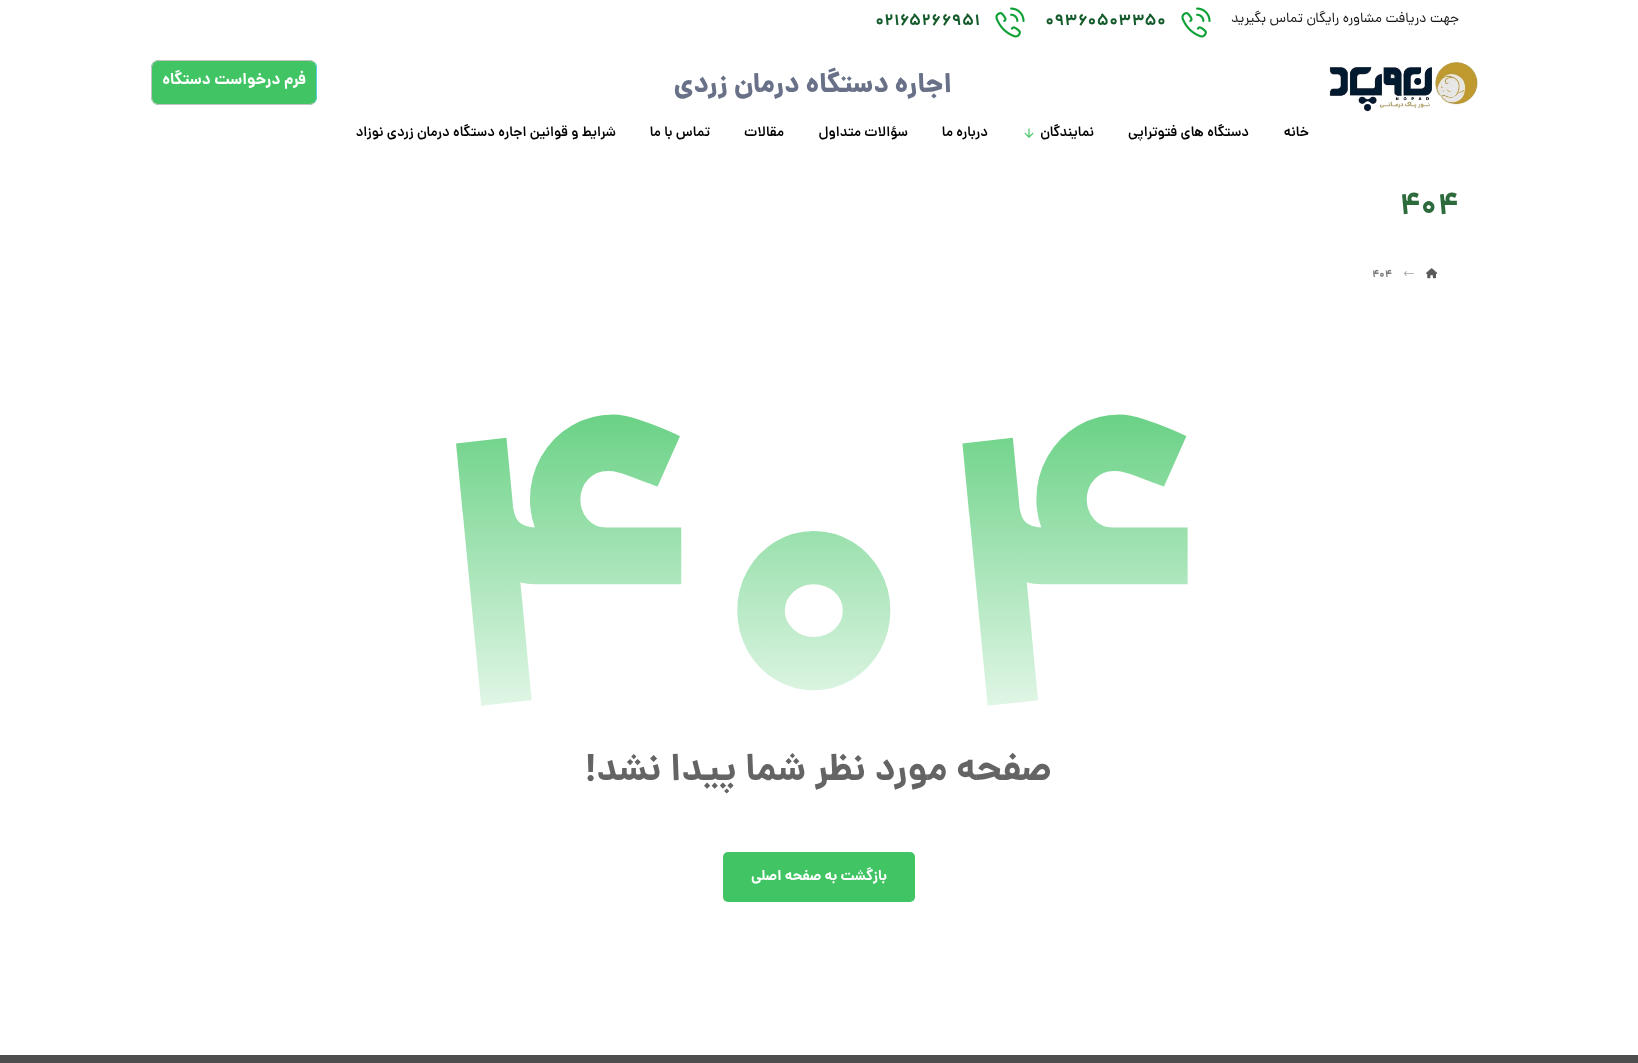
<?xml version="1.0" encoding="UTF-8"?>
<svg xmlns="http://www.w3.org/2000/svg" width="1638" height="1063">
    <defs>
        <linearGradient id="g1" gradientUnits="userSpaceOnUse" x1="819" y1="312" x2="819" y2="939"><stop offset="0" stop-color="#41C564"/><stop offset="0.75" stop-color="#FFFFFF"/></linearGradient>
    </defs>
    <rect width="100%" height="100%" fill="#FFFFFF"/>
    <text x="1459" y="22" font-family="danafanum" font-size="14" direction="rtl" fill="#141414">جهت دریافت مشاوره رایگان تماس بگیرید</text>
    <image x="1181" y="7" width="30" height="31" href="img_01.png"/>
    <text x="1045" y="25" font-family="danafanum" font-size="16" font-weight="700" fill="#145B2B">۰۹۳۶۰۵۰۳۳۵۰</text>
    <image x="995" y="7" width="30" height="31" href="img_01.png"/>
    <text x="875" y="25" font-family="danafanum" font-size="16" font-weight="700" fill="#145B2B">۰۲۱۶۵۲۶۶۹۵۱</text>
    <image x="1329" y="62" width="149" height="50" href="img_02.png"/>
    <text x="952" y="92" font-family="danafanum" font-size="27" font-weight="800" direction="rtl" fill="#687187">اجاره دستگاه درمان زردی</text>
    <rect x="151" y="60" width="166" height="45" rx="8" fill="#41C564"/>
    <path d="M 314.5 62.5 C 315.5 64 316.5 66 316.5 68 V 97 C 316.5 99 315.5 101 314.5 102.5" fill="none" stroke="#53CEDE"/>
    <path d="M 314.5 102.5 C 313 103.5 311 104.5 309 104.5 H 159 C 157 104.5 155 103.5 153.5 102.5 C 152.5 101 151.5 99 151.5 97 V 68 C 151.5 66 152.5 64 153.5 62.5 C 155 61.5 157 60.5 159 60.5 H 309 C 311 60.5 313 61.5 314.5 62.5" fill="none" stroke="#C4C4C4"/>
    <text x="306" y="84" font-family="danafanum" font-size="16" font-weight="700" direction="rtl" fill="#FFFFFF">فرم درخواست دستگاه</text>
    <text x="1309" y="136" font-family="danafanum" font-size="14" font-weight="600" direction="rtl" fill="#000000">خانه</text>
    <text x="1249" y="136" font-family="danafanum" font-size="14" font-weight="600" direction="rtl" fill="#000000">دستگاه های فتوتراپی</text>
    <text x="1094" y="136" font-family="danafanum" font-size="14" font-weight="600" direction="rtl" fill="#000000">نمایندگان</text>
    <image x="1024" y="128" width="10" height="10" href="img_03.png"/>
    <text x="988" y="136" font-family="danafanum" font-size="14" font-weight="600" direction="rtl" fill="#000000">درباره ما</text>
    <text x="908" y="136" font-family="danafanum" font-size="14" font-weight="600" direction="rtl" fill="#000000">سؤالات متداول</text>
    <text x="784" y="136" font-family="danafanum" font-size="14" font-weight="600" direction="rtl" fill="#000000">مقالات</text>
    <text x="710" y="136" font-family="danafanum" font-size="14" font-weight="600" direction="rtl" fill="#000000">تماس با ما</text>
    <text x="616" y="136" font-family="danafanum" font-size="14" font-weight="600" direction="rtl" fill="#000000">شرایط و قوانین اجاره دستگاه درمان زردی نوزاد</text>
    <text x="1399" y="214" font-family="danafanum" font-size="30" font-weight="700" fill="#2D6B3D">۴۰۴</text>
    <image x="1426" y="268" width="12" height="11" href="img_04.png"/>
    <image x="1404" y="271" width="10" height="5" href="img_05.png"/>
    <text x="1372" y="277" font-family="danafanum" font-size="10" font-weight="700" fill="#7B7B7B">۴۰۴</text>
    <text x="416" y="703" font-family="danafanum" font-size="400" font-weight="700" fill="url(#g1)">۴۰۴</text>
    <text x="1052" y="780" font-family="danafanum" font-size="38" font-weight="700" direction="rtl" fill="#646464">صفحه مورد نظر شما پیدا نشد!</text>
    <rect x="723" y="852" width="192" height="50" rx="5" fill="#41C564"/>
    <text x="887" y="880" font-family="danafanum" font-size="14.5" font-weight="700" direction="rtl" fill="#FFFFFF">بازگشت به صفحه اصلی</text>
    <rect x="0" y="1055" width="1638" height="8" fill="#4E4E4E"/>
</svg>
